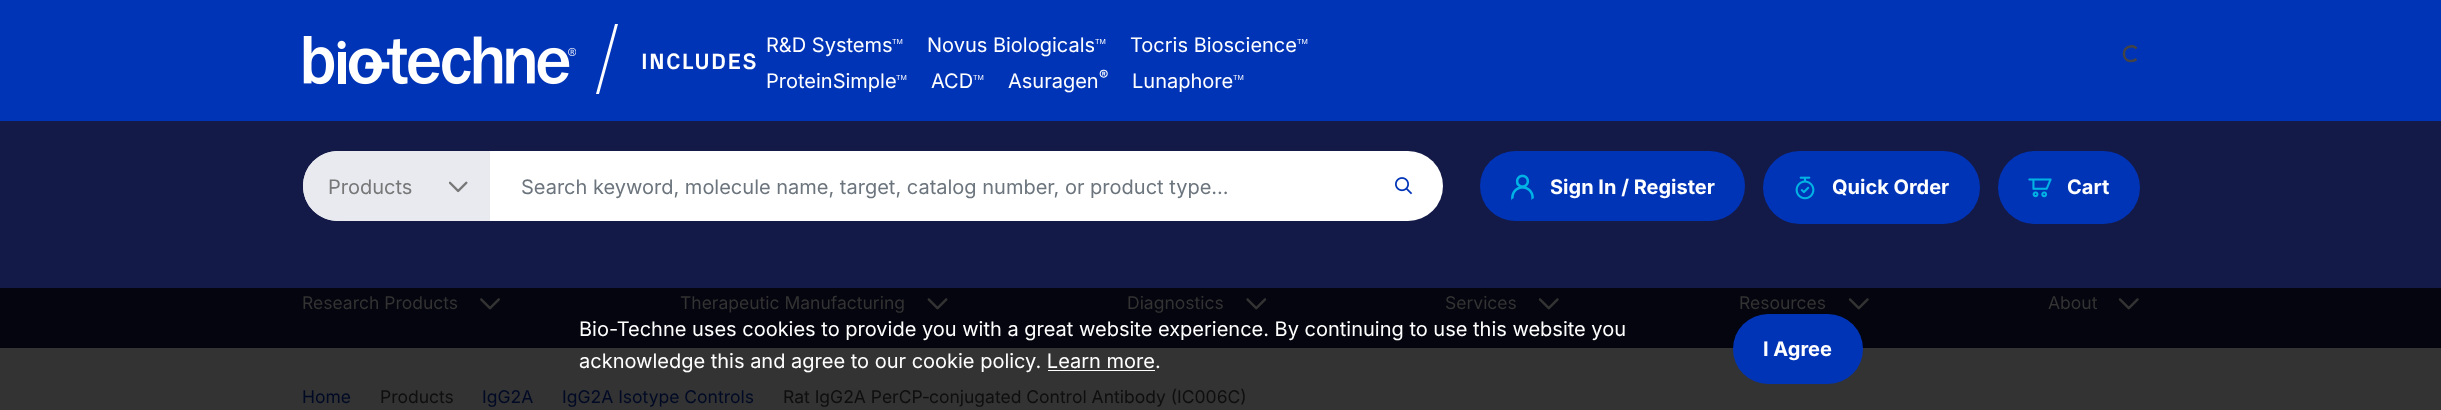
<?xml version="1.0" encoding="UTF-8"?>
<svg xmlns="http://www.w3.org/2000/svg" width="2441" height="410">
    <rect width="100%" height="100%" fill="#333333"/>
    <rect x="0" y="0" width="2441" height="121" fill="#0034B7"/>
    <image x="303" y="36" width="273" height="49" href="img_01.png"/>
    <path d="M 615 24 H 618 L 599 94 H 596 Z" fill="#FFFFFF"/>
    <text x="641" y="69" font-family="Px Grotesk" font-size="22.5" font-weight="700" letter-spacing="1.25" fill="#FFFFFF">INCLUDES</text>
    <text x="766" y="52" font-family="Inter" font-size="20" fill="#FFFFFF">R&amp;D Systems</text>
    <text x="892" y="44" font-family="Inter" font-size="7" fill="#FFFFFF">TM</text>
    <text x="927" y="52" font-family="Inter" font-size="20" fill="#FFFFFF">Novus Biologicals</text>
    <text x="1095" y="44" font-family="Inter" font-size="7" fill="#FFFFFF">TM</text>
    <text x="1130" y="52" font-family="Inter" font-size="20" fill="#FFFFFF">Tocris Bioscience</text>
    <text x="1297" y="44" font-family="Inter" font-size="7" fill="#FFFFFF">TM</text>
    <text x="766" y="88" font-family="Inter" font-size="20" fill="#FFFFFF">ProteinSimple</text>
    <text x="896" y="80" font-family="Inter" font-size="7" fill="#FFFFFF">TM</text>
    <text x="931" y="88" font-family="Inter" font-size="20" fill="#FFFFFF">ACD</text>
    <text x="973" y="80" font-family="Inter" font-size="7" fill="#FFFFFF">TM</text>
    <text x="1008" y="88" font-family="Inter" font-size="20" fill="#FFFFFF">Asuragen</text>
    <text x="1099" y="80" font-family="Inter" font-size="14" fill="#FFFFFF">®</text>
    <text x="1132" y="88" font-family="Inter" font-size="20" fill="#FFFFFF">Lunaphore</text>
    <text x="1233" y="80" font-family="Inter" font-size="7" fill="#FFFFFF">TM</text>
    <path d="M 2136.5 59 C 2135 60.5 2133 61 2131 61 C 2122.5 61.5 2121 48 2130 46.5 C 2132 46 2135 46.5 2136.5 48.5" fill="none" stroke="#444444" stroke-width="2.5"/>
    <rect x="0" y="121" width="2441" height="167" fill="#141A47"/>
    <rect x="0" y="288" width="2441" height="60" fill="#04050E"/>
    <rect x="303" y="151" width="1140" height="70" rx="35" fill="#FFFFFF"/>
    <path d="M 338 151 H 490 V 221 H 338 C 318.5 221 303 205.5 303 186 C 303 166.5 318.5 151 338 151 Z" fill="#E8EAF0"/>
    <image x="449" y="181" width="19" height="12" href="img_02.png"/>
    <text x="328" y="194" font-family="Inter" font-size="20" fill="#777777">Products</text>
    <text x="521" y="194" font-family="Inter" font-size="20" fill="#6C757D">Search keyword, molecule name, target, catalog number, or product type...</text>
    <image x="1395" y="177" width="18" height="18" href="img_03.png"/>
    <rect x="1480" y="151" width="265" height="70" rx="35" fill="#0034B7"/>
    <image x="1511" y="174" width="23" height="27" href="img_04.png"/>
    <text x="1550" y="194" font-family="Inter" font-size="20" font-weight="700" fill="#FFFFFF">Sign In / Register</text>
    <rect x="1763" y="151" width="217" height="73" rx="36.5" fill="#0034B7"/>
    <image x="1795" y="176" width="20" height="24" href="img_05.png"/>
    <text x="1832" y="194" font-family="Inter" font-size="20" font-weight="700" fill="#FFFFFF">Quick Order</text>
    <rect x="1998" y="151" width="142" height="73" rx="36.5" fill="#0034B7"/>
    <image x="2028" y="178" width="24" height="20" href="img_06.png"/>
    <text x="2067" y="194" font-family="Inter" font-size="20" font-weight="700" fill="#FFFFFF">Cart</text>
    <text x="302" y="309" font-family="Inter" font-size="17.5" fill="#333333">Research Products</text>
    <image x="480" y="298" width="20" height="12" href="img_07.png"/>
    <text x="680" y="309" font-family="Inter" font-size="17.5" fill="#333333">Therapeutic Manufacturing</text>
    <image x="927" y="298" width="21" height="12" href="img_08.png"/>
    <text x="1127" y="309" font-family="Inter" font-size="17.5" fill="#333333">Diagnostics</text>
    <image x="1246" y="298" width="21" height="12" href="img_09.png"/>
    <text x="1445" y="309" font-family="Inter" font-size="17.5" fill="#333333">Services</text>
    <image x="1538" y="298" width="21" height="12" href="img_10.png"/>
    <text x="1739" y="309" font-family="Inter" font-size="17.5" fill="#333333">Resources</text>
    <image x="1848" y="298" width="21" height="12" href="img_10.png"/>
    <text x="2048" y="309" font-family="Inter" font-size="17.5" fill="#333333">About</text>
    <image x="2118" y="298" width="21" height="12" href="img_10.png"/>
    <text x="302" y="403" font-family="Inter" font-size="17.5" fill="#000A25">Home</text>
    <text x="380" y="403" font-family="Inter" font-size="17.5" fill="#0E0E0E">Products</text>
    <text x="482" y="403" font-family="Inter" font-size="17.5" fill="#000A25">IgG2A</text>
    <text x="562" y="403" font-family="Inter" font-size="17.5" fill="#000A25">IgG2A Isotype Controls</text>
    <text x="783" y="403" font-family="Inter" font-size="17.5" fill="#0E0E0E">Rat IgG2A PerCP‑conjugated Control Antibody (IC006C)</text>
    <text font-family="Inter" font-size="20" fill="#FFFFFF">
        <tspan x="579" y="336">Bio-Techne uses cookies to provide you with a great website experience. By continuing to use this website you</tspan>
        <tspan x="579" y="368">acknowledge this and agree to our cookie policy. Learn more.</tspan>
    </text>
    <rect x="1048" y="370" width="107" height="1" fill="#FFFFFF"/>
    <rect x="1733" y="314" width="130" height="70" rx="35" fill="#0034B7"/>
    <text x="1763" y="356" font-family="Inter" font-size="20" font-weight="700" fill="#FFFFFF">I Agree</text>
</svg>
